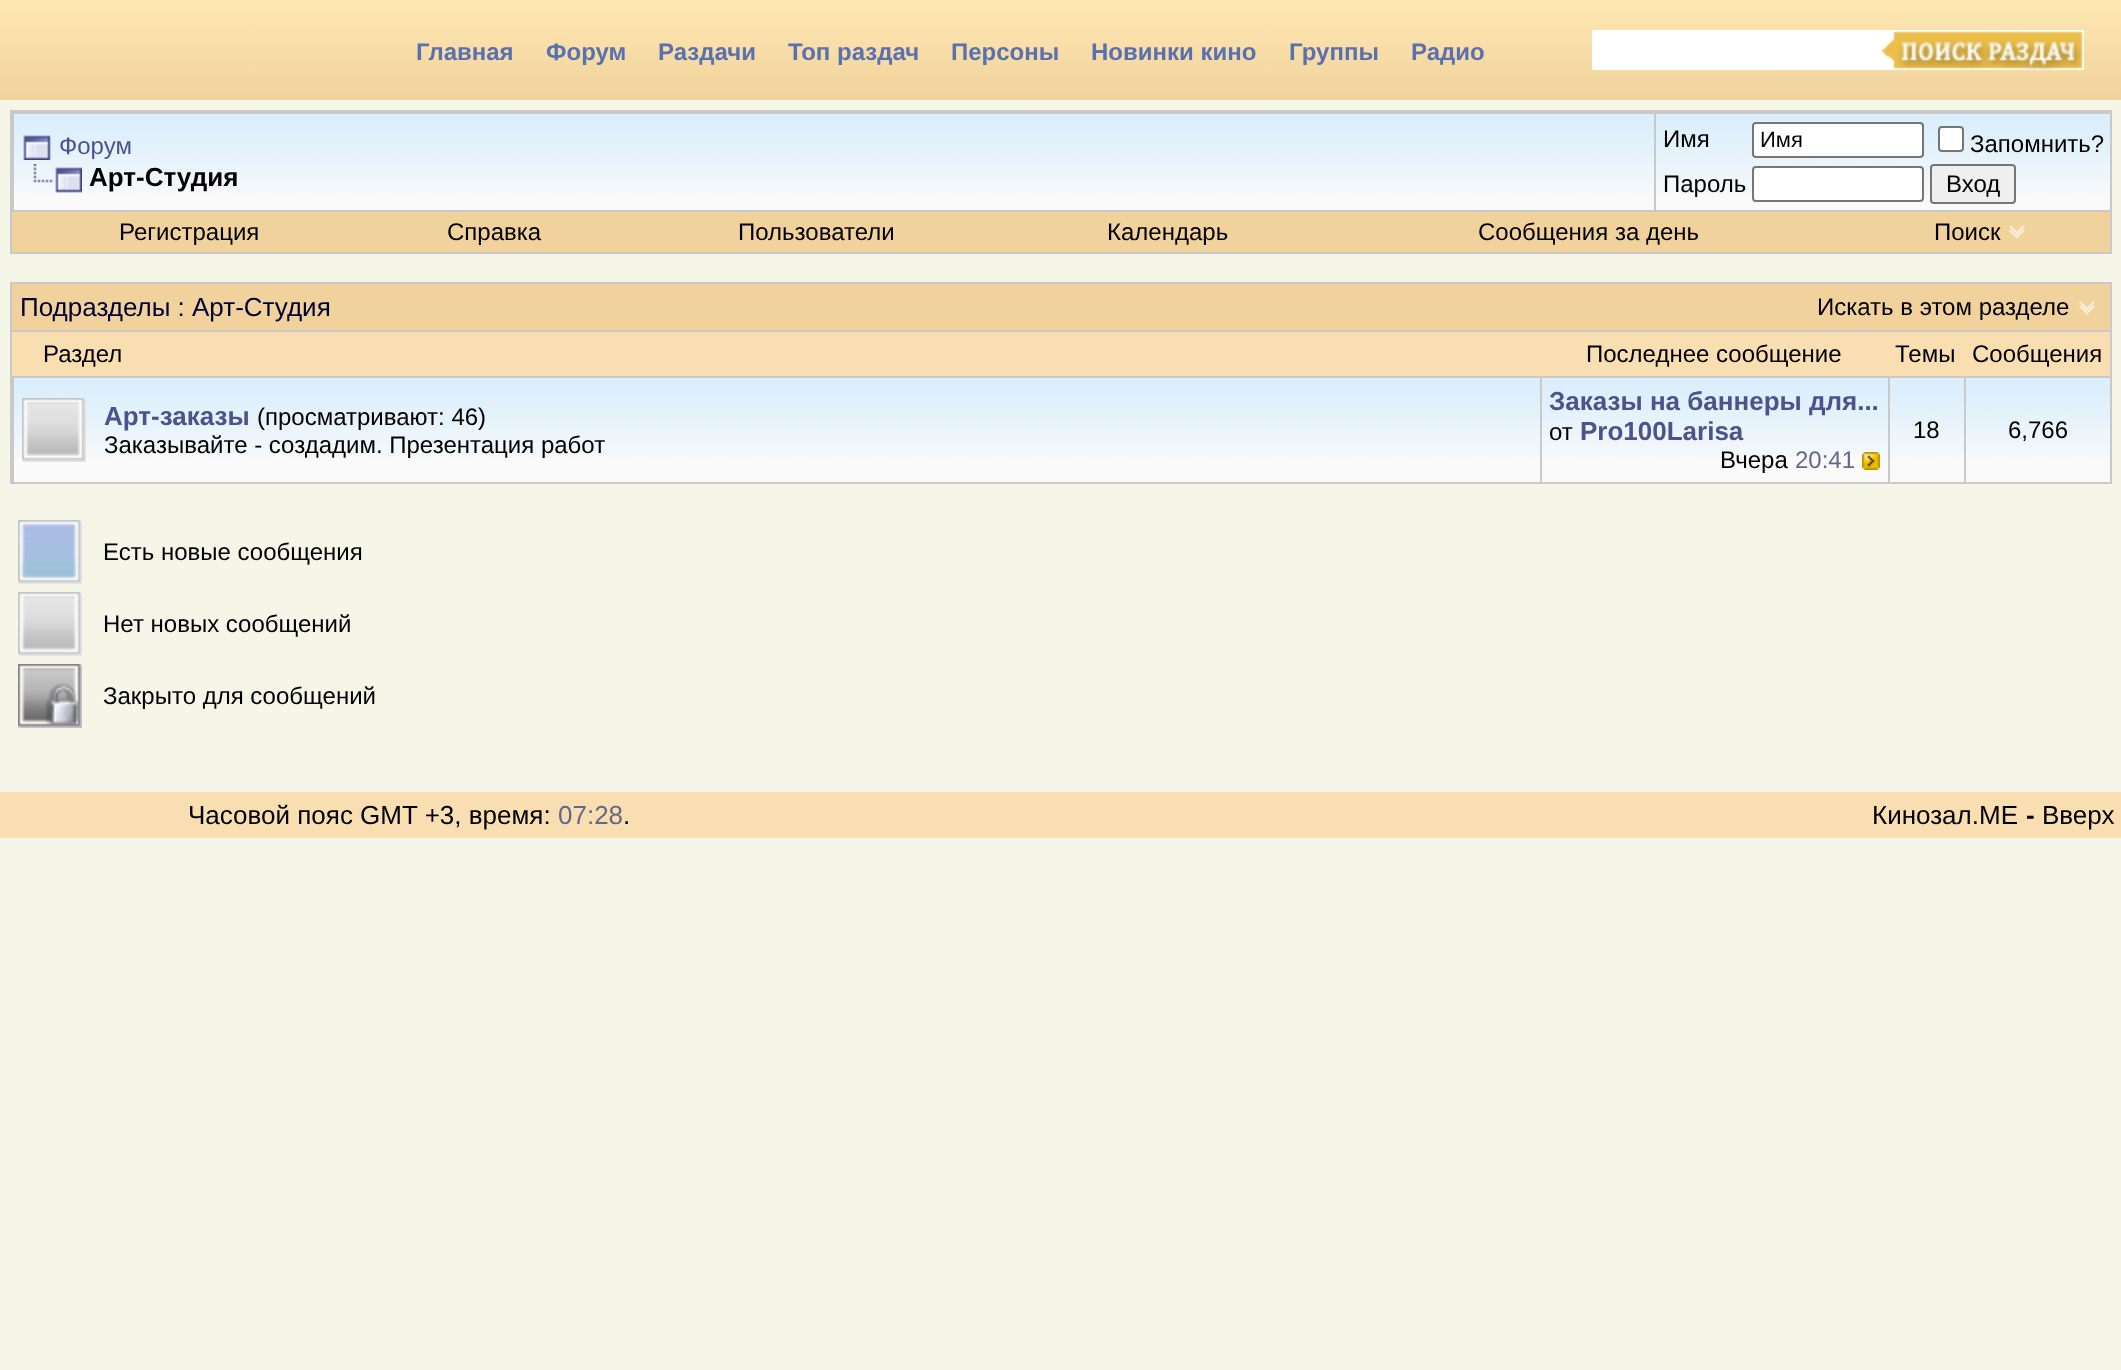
<?xml version="1.0" encoding="UTF-8"?>
<svg xmlns="http://www.w3.org/2000/svg" width="2121" height="1370">
    <defs>
        <linearGradient id="g1" gradientUnits="userSpaceOnUse" x1="1061" y1="0" x2="1061" y2="100"><stop offset="0" stop-color="#FFE8B3"/><stop offset="1" stop-color="#F1D29C"/></linearGradient>
    </defs>
    <rect width="100%" height="100%" fill="#F6F6E8"/>
    <rect x="0" y="0" width="2121" height="100" fill="url(#g1)"/>
    <text x="416" y="60" font-family="Liberation Sans" font-size="24" font-weight="700" fill="#5A71B0">Главная</text>
    <text x="546" y="60" font-family="Liberation Sans" font-size="24" font-weight="700" fill="#5A71B0">Форум</text>
    <text x="658" y="60" font-family="Liberation Sans" font-size="24" font-weight="700" fill="#5A71B0">Раздачи</text>
    <text x="788" y="60" font-family="Liberation Sans" font-size="24" font-weight="700" fill="#5A71B0">Топ раздач</text>
    <text x="951" y="60" font-family="Liberation Sans" font-size="24" font-weight="700" fill="#5A71B0">Персоны</text>
    <text x="1091" y="60" font-family="Liberation Sans" font-size="24" font-weight="700" fill="#5A71B0">Новинки кино</text>
    <text x="1289" y="60" font-family="Liberation Sans" font-size="24" font-weight="700" fill="#5A71B0">Группы</text>
    <text x="1411" y="60" font-family="Liberation Sans" font-size="24" font-weight="700" fill="#5A71B0">Радио</text>
    <rect x="1592" y="30" width="290" height="40" fill="#FFFFFF"/>
    <image x="1882" y="30" width="202" height="40" href="img_01.png"/>
    <rect x="11" y="111" width="2100" height="100" fill="none" stroke="#C9C9C9" stroke-width="2"/>
    <rect x="14" y="194" width="1640" height="16" fill="#FAFAFA"/>
    <image x="14" y="114" width="1640" height="80" href="img_02.png"/>
    <rect x="12" y="112" width="2098" height="2" fill="#C9C9C9"/>
    <rect x="12" y="112" width="2" height="98" fill="#C9C9C9"/>
    <image x="23" y="135" width="28" height="25" href="img_03.png"/>
    <text x="59" y="154" font-family="Liberation Sans" font-size="24" fill="#4D528C">Форум</text>
    <image x="33" y="164" width="49" height="29" href="img_04.png"/>
    <text x="89" y="186" font-family="Liberation Sans" font-size="26" font-weight="700" fill="#000000">Арт-Студия</text>
    <rect x="1656" y="194" width="454" height="16" fill="#FAFAFA"/>
    <image x="1656" y="114" width="454" height="80" href="img_05.png"/>
    <rect x="1654" y="112" width="2" height="98" fill="#C9C9C9"/>
    <text x="1663" y="147" font-family="Liberation Sans" font-size="24" fill="#000000">Имя</text>
    <rect x="1753" y="123" width="170" height="34" rx="3" fill="#FFFFFF" stroke="#767676" stroke-width="2"/>
    <text x="1760" y="147" font-family="Liberation Sans" font-size="22" fill="#000000">Имя</text>
    <rect x="1939" y="127" width="24" height="24" rx="3" fill="#FFFFFF" stroke="#767676" stroke-width="2"/>
    <text x="1970" y="152" font-family="Liberation Sans" font-size="24" fill="#000000">Запомнить?</text>
    <text x="1663" y="192" font-family="Liberation Sans" font-size="24" fill="#000000">Пароль</text>
    <rect x="1753" y="167" width="170" height="34" rx="3" fill="#FFFFFF" stroke="#767676" stroke-width="2"/>
    <rect x="1931" y="165" width="84" height="38" rx="3" fill="#EFEFEF" stroke="#767676" stroke-width="2"/>
    <text x="1946" y="192" font-family="Liberation Sans" font-size="24" fill="#000000">Вход</text>
    <rect x="2110" y="212" width="2" height="42" fill="#C9C9C9"/>
    <rect x="10" y="252" width="2102" height="2" fill="#C9C9C9"/>
    <rect x="10" y="212" width="2" height="42" fill="#C9C9C9"/>
    <rect x="12" y="212" width="2098" height="40" fill="#F1D29C"/>
    <text x="119" y="240" font-family="Liberation Sans" font-size="24" fill="#000000">Регистрация</text>
    <text x="447" y="240" font-family="Liberation Sans" font-size="24" fill="#000000">Справка</text>
    <text x="738" y="240" font-family="Liberation Sans" font-size="24" fill="#000000">Пользователи</text>
    <text x="1107" y="240" font-family="Liberation Sans" font-size="24" fill="#000000">Календарь</text>
    <text x="1478" y="240" font-family="Liberation Sans" font-size="24" fill="#000000">Сообщения за день</text>
    <text x="1934" y="240" font-family="Liberation Sans" font-size="24" fill="#000000">Поиск</text>
    <image x="2009" y="225" width="16" height="14" href="img_06.png"/>
    <rect x="10" y="282" width="2102" height="2" fill="#C9C9C9"/>
    <rect x="2110" y="282" width="2" height="48" fill="#C9C9C9"/>
    <rect x="10" y="282" width="2" height="48" fill="#C9C9C9"/>
    <rect x="12" y="284" width="2098" height="46" fill="#F1D29C"/>
    <text x="20" y="316" font-family="Liberation Sans" font-size="26" fill="#000033">Подразделы : Арт-Студия</text>
    <text x="1817" y="315" font-family="Liberation Sans" font-size="24" fill="#000000">Искать в этом разделе</text>
    <image x="2079" y="301" width="16" height="14" href="img_06.png"/>
    <rect x="11" y="331" width="2100" height="152" fill="none" stroke="#C9C9C9" stroke-width="2"/>
    <rect x="12" y="332" width="2098" height="44" fill="#F8DEB1"/>
    <text x="43" y="362" font-family="Liberation Sans" font-size="24" fill="#000000">Раздел</text>
    <text x="1586" y="362" font-family="Liberation Sans" font-size="24" fill="#000000">Последнее сообщение</text>
    <text x="1895" y="362" font-family="Liberation Sans" font-size="24" fill="#000000">Темы</text>
    <text x="1972" y="362" font-family="Liberation Sans" font-size="24" fill="#000000">Сообщения</text>
    <rect x="14" y="458" width="1526" height="24" fill="#FAFAFA"/>
    <image x="14" y="378" width="1526" height="80" href="img_07.png"/>
    <rect x="12" y="376" width="2098" height="2" fill="#C9C9C9"/>
    <rect x="12" y="376" width="2" height="106" fill="#C9C9C9"/>
    <image x="22" y="398" width="64" height="64" href="img_08.png"/>
    <text x="104" y="425" font-family="Liberation Sans" font-size="26" font-weight="700" fill="#4D528C">Арт-заказы</text>
    <text x="257" y="425" font-family="Liberation Sans" font-size="24" fill="#000000">(просматривают: 46)</text>
    <text x="104" y="453" font-family="Liberation Sans" font-size="24" fill="#000000">Заказывайте - создадим. Презентация работ</text>
    <rect x="1542" y="458" width="346" height="24" fill="#FAFAFA"/>
    <image x="1542" y="378" width="346" height="80" href="img_09.png"/>
    <rect x="1540" y="376" width="2" height="106" fill="#C9C9C9"/>
    <text x="1549" y="410" font-family="Liberation Sans" font-size="26" font-weight="700" fill="#4D528C">Заказы на баннеры для...</text>
    <text x="1549" y="440" font-family="Liberation Sans" font-size="24" fill="#000000">от</text>
    <text x="1580" y="440" font-family="Liberation Sans" font-size="26" font-weight="700" fill="#4D528C">Pro100Larisa</text>
    <text x="1720" y="468" font-family="Liberation Sans" font-size="24" fill="#000000">Вчера</text>
    <text x="1795" y="468" font-family="Liberation Sans" font-size="24" fill="#666686">20:41</text>
    <image x="1862" y="452" width="18" height="18" href="img_10.png"/>
    <rect x="1890" y="458" width="74" height="24" fill="#FAFAFA"/>
    <image x="1890" y="378" width="74" height="80" href="img_11.png"/>
    <rect x="1888" y="376" width="2" height="106" fill="#C9C9C9"/>
    <text x="1913" y="438" font-family="Liberation Sans" font-size="24" fill="#000000">18</text>
    <rect x="1966" y="458" width="144" height="24" fill="#FAFAFA"/>
    <image x="1966" y="378" width="144" height="80" href="img_12.png"/>
    <rect x="1964" y="376" width="2" height="106" fill="#C9C9C9"/>
    <text x="2008" y="438" font-family="Liberation Sans" font-size="24" fill="#000000">6,766</text>
    <image x="18" y="520" width="64" height="64" href="img_13.png"/>
    <text x="103" y="560" font-family="Liberation Sans" font-size="24" fill="#000000">Есть новые сообщения</text>
    <image x="18" y="592" width="64" height="64" href="img_08.png"/>
    <text x="103" y="632" font-family="Liberation Sans" font-size="24" fill="#000000">Нет новых сообщений</text>
    <image x="18" y="664" width="64" height="64" href="img_14.png"/>
    <text x="103" y="704" font-family="Liberation Sans" font-size="24" fill="#000000">Закрыто для сообщений</text>
    <rect x="0" y="792" width="2121" height="46" fill="#F8DEB1"/>
    <text x="188" y="824" font-family="Liberation Sans" font-size="26" fill="#000000">Часовой пояс GMT +3, время:</text>
    <text x="558" y="824" font-family="Liberation Sans" font-size="26" fill="#666686">07:28</text>
    <text x="623" y="824" font-family="Liberation Sans" font-size="26" fill="#000000">.</text>
    <text x="1872" y="824" font-family="Liberation Sans" font-size="26" fill="#000000">Кинозал.МЕ</text>
    <text x="2026" y="824" font-family="Liberation Sans" font-size="26" font-weight="700" fill="#000000">-</text>
    <text x="2042" y="824" font-family="Liberation Sans" font-size="26" fill="#000000">Вверх</text>
</svg>
